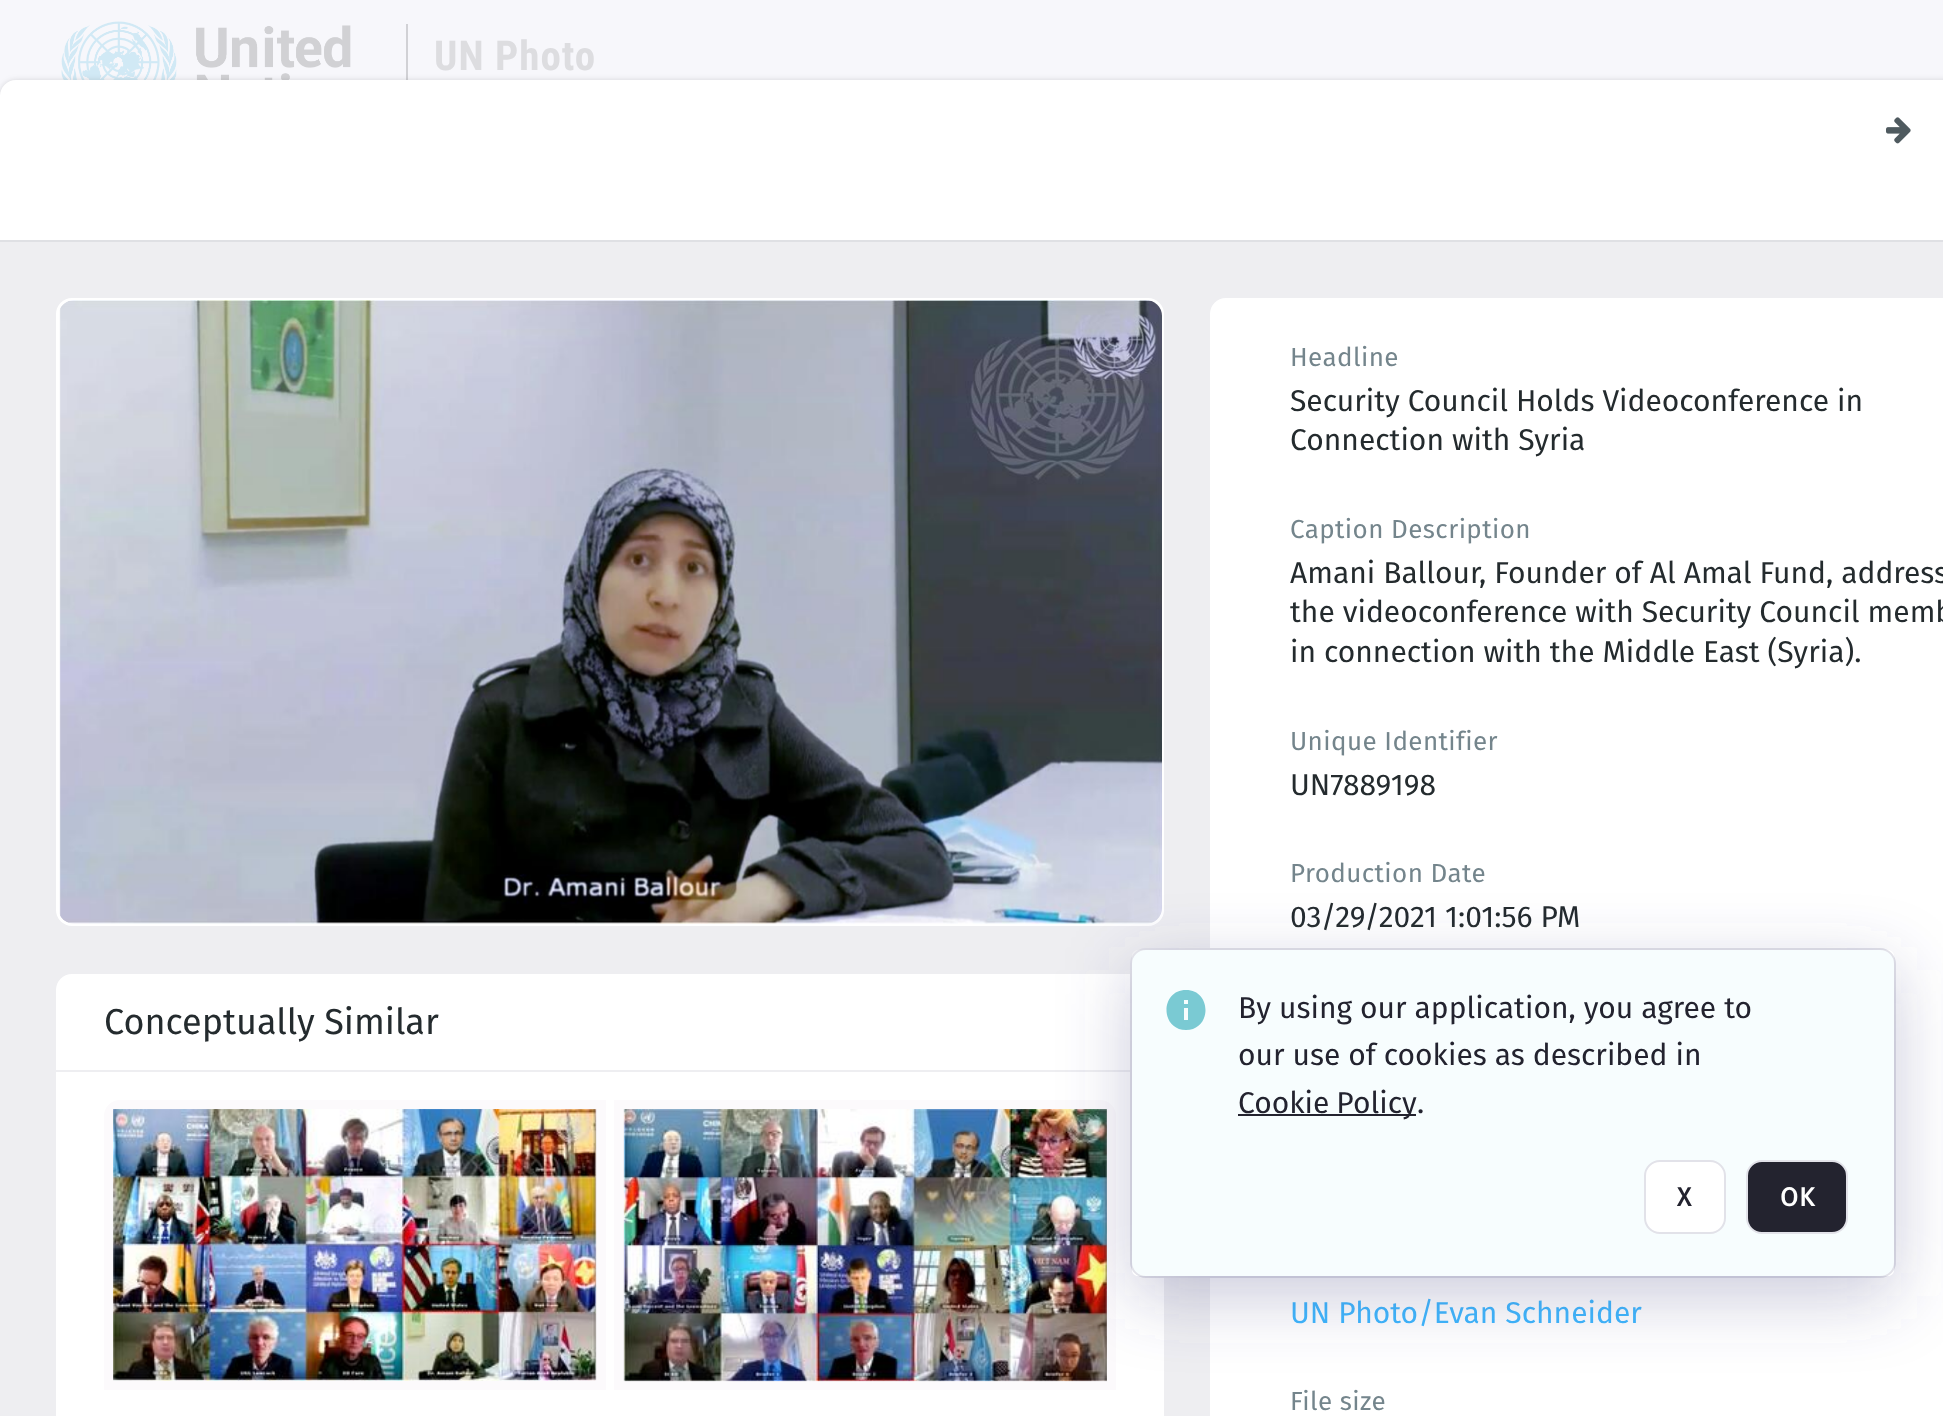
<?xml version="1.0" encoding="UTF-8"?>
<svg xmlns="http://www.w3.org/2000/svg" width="1943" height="1416">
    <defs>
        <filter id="blur1" x="-50%" y="-200%" width="200%" height="500%"><feGaussianBlur stdDeviation="2"/></filter>
        <filter id="blur2" x="-50%" y="-200%" width="200%" height="500%"><feGaussianBlur stdDeviation="3"/></filter>
        <clipPath id="clip1"><path d="M 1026 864 H 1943 V 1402 H 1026 Z M 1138 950 H 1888 C 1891.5 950 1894 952.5 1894 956 V 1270 C 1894 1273.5 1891.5 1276 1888 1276 H 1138 C 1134.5 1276 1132 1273.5 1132 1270 V 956 C 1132 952.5 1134.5 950 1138 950 Z" clip-rule="evenodd"/></clipPath>
        <filter id="blur3" x="-50%" y="-200%" width="200%" height="500%"><feGaussianBlur stdDeviation="35"/></filter>
    </defs>
    <rect width="100%" height="100%" fill="#F7F7FB"/>
    <image x="61" y="21" width="290" height="59" href="img_01.png"/>
    <rect x="406" y="24" width="2" height="56" fill="#D1D1D5"/>
    <text x="434" y="70" font-family="Roboto Condensed" font-size="41" font-weight="700" letter-spacing="1" fill="#DDDDE0">UN Photo</text>
    <rect x="0" y="80" width="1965" height="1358" rx="16" fill="#000000" fill-opacity="0.06" filter="url(#blur1)"/>
    <rect x="0" y="80" width="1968" height="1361" rx="16" fill="#000000" fill-opacity="0.08" filter="url(#blur2)"/>
    <path d="M 16 80 H 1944 V 1416 H 0 V 96 C 0 87 7 80 16 80 Z" fill="#FFFFFF"/>
    <image x="1886" y="117" width="25" height="27" href="img_02.png"/>
    <rect x="0" y="240" width="1943" height="2" fill="#DFE0E4"/>
    <rect x="0" y="242" width="1943" height="1174" fill="#EEEEF1"/>
    <rect x="56" y="298" width="1108" height="628" rx="16" fill="#FFFFFF"/>
    <image x="59" y="300" width="1103" height="624" href="img_03.png"/>
    <path d="M 72 974 H 1148 C 1157 974 1164 981 1164 990 V 1416 H 56 V 990 C 56 981 63 974 72 974 Z" fill="#FFFFFF"/>
    <text x="104" y="1034" font-family="Fira Sans" font-size="36" fill="#242B2E">Conceptually Similar</text>
    <path d="M 120 1100 H 606 V 1390 H 104 V 1116 C 104 1107 111 1100 120 1100 Z" fill="#FCFAFC"/>
    <image x="113" y="1109" width="484" height="272" href="img_04.png"/>
    <path d="M 614 1100 H 1100 C 1109 1100 1116 1107 1116 1116 V 1390 H 614 Z" fill="#FCFAFC"/>
    <image x="623" y="1109" width="484" height="273" href="img_05.png"/>
    <rect x="56" y="1070" width="1074" height="2" fill="#EEEEF1"/>
    <path d="M 1226 298 H 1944 V 1416 H 1210 V 314 C 1210 305 1217 298 1226 298 Z" fill="#FFFFFF"/>
    <text x="1290" y="366" font-family="Fira Sans" font-size="26" letter-spacing="0.4" fill="#74858C">Headline</text>
    <text font-family="Fira Sans" font-size="30" fill="#242B2E">
        <tspan x="1290" y="411">Security Council Holds Videoconference in</tspan>
        <tspan x="1290" y="450">Connection with Syria</tspan>
    </text>
    <text x="1290" y="538" font-family="Fira Sans" font-size="26" letter-spacing="0.4" fill="#74858C">Caption Description</text>
    <text font-family="Fira Sans" font-size="30" fill="#242B2E">
        <tspan x="1290" y="583">Amani Ballour, Founder of Al Amal Fund, address</tspan>
        <tspan x="1290" y="622">the videoconference with Security Council memb</tspan>
        <tspan x="1290" y="662">in connection with the Middle East (Syria).</tspan>
    </text>
    <text x="1290" y="750" font-family="Fira Sans" font-size="26" letter-spacing="0.4" fill="#74858C">Unique Identifier</text>
    <text x="1290" y="795" font-family="Fira Sans" font-size="30" fill="#242B2E">UN7889198</text>
    <text x="1290" y="882" font-family="Fira Sans" font-size="26" letter-spacing="0.4" fill="#74858C">Production Date</text>
    <text x="1290" y="927" font-family="Fira Sans" font-size="30" fill="#242B2E">03/29/2021 1:01:56 PM</text>
    <text x="1290" y="1323" font-family="Fira Sans" font-size="30" fill="#3DB7FF">UN Photo/Evan Schneider</text>
    <text x="1290" y="1410" font-family="Fira Sans" font-size="26" letter-spacing="0.4" fill="#74858C">File size</text>
    <rect x="1131" y="949" width="764" height="328" rx="15" fill="#F7FDFE" stroke="#E2E2E9" stroke-width="2"/>
    <g clip-path="url(#clip1)">
        <rect x="1132" y="970" width="762" height="326" rx="6" fill="#4D4D87" fill-opacity="0.3" filter="url(#blur3)"/>
    </g>
    <path d="M 1186 990 C 1160 990 1160 1030 1186 1030 C 1212 1030 1212 990 1186 990 Z M 1188 1020 H 1184 V 1008 H 1188 Z M 1188 1004 H 1184 V 1000 H 1188 Z" fill="#7ACAD3"/>
    <text font-family="Fira Sans" font-size="30" fill="#23232F">
        <tspan x="1238" y="1018">By using our application, you agree to</tspan>
        <tspan x="1238" y="1065">our use of cookies as described in</tspan>
    </text>
    <rect x="1238" y="1114" width="178" height="2" fill="#23232F"/>
    <text x="1238" y="1113" word-spacing="-1" font-family="Fira Sans" font-size="30" fill="#23232F">Cookie Policy</text>
    <text x="1417" y="1113" font-family="Fira Sans" font-size="30" fill="#23232F">.</text>
    <rect x="1645" y="1161" width="80" height="72" rx="15" fill="#FFFFFF" stroke="#E2E2E9" stroke-width="2"/>
    <text x="1677" y="1206" font-family="Fira Sans" font-size="26" font-weight="700" letter-spacing="1" fill="#23232F">X</text>
    <rect x="1747" y="1161" width="100" height="72" rx="15" fill="#23232F" stroke="#E2E2E9" stroke-width="2"/>
    <text x="1780" y="1206" font-family="Fira Sans" font-size="26" font-weight="700" letter-spacing="1" fill="#FFFFFF">OK</text>
</svg>
